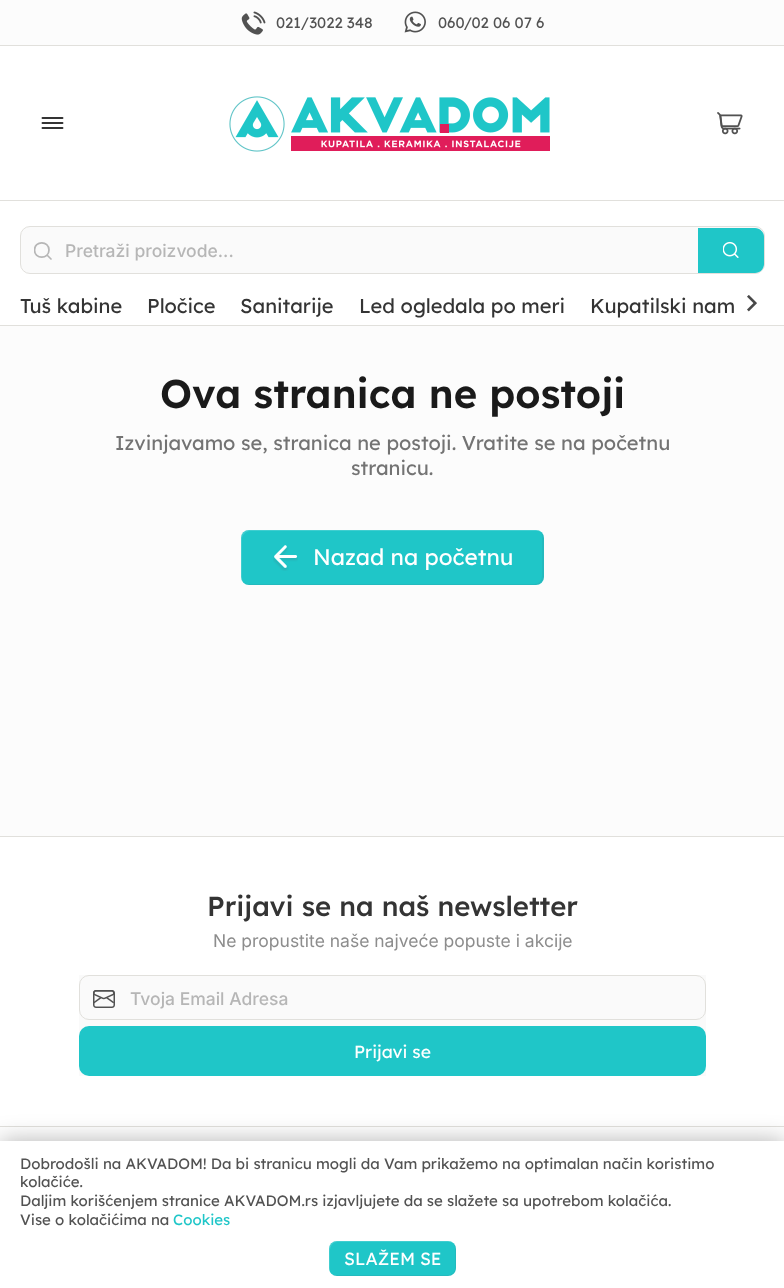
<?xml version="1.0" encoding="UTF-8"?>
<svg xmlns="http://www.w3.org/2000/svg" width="784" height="1288">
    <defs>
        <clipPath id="clip1"><rect x="34" y="241" width="19" height="19"/></clipPath>
        <filter id="blur1" x="-50%" y="-200%" width="200%" height="500%"><feGaussianBlur stdDeviation="12.5"/></filter>
    </defs>
    <rect width="100%" height="100%" fill="#FCFCFC"/>
    <rect x="0" y="45" width="784" height="1" fill="#E1E0DC"/>
    <image x="241" y="11" width="25" height="24" href="img_01.png"/>
    <text x="276" y="28" font-family="Lexend" font-size="15" fill="#525252">021/3022 348</text>
    <image x="404" y="11" width="22" height="22" href="img_02.png"/>
    <text x="438" y="28" font-family="Lexend" font-size="15" fill="#525252">060/02 06 07 6</text>
    <rect x="0" y="46" width="784" height="154" fill="#FFFFFF"/>
    <path d="M 42.5 118 H 62.5 M 42.5 128 H 62.5 M 42.5 123 H 62.5" fill="none" stroke="#343434" stroke-width="1.9" stroke-linecap="round"/>
    <image x="229" y="96" width="321" height="56" href="img_03.png"/>
    <image x="717" y="112" width="26" height="23" href="img_04.png"/>
    <rect x="0" y="201" width="784" height="124" fill="#FFFFFF"/>
    <rect x="0" y="200" width="784" height="1" fill="#E1E0DC"/>
    <rect x="0" y="325" width="784" height="1" fill="#E1E0DC"/>
    <rect x="20.5" y="226.5" width="744" height="47" rx="9.5" fill="#FAFAFA" stroke="#E1E0DC"/>
    <g clip-path="url(#clip1)">
        <path d="M 51 259 L 47 255 M 49 250 C 49 259.5 34.5 259.5 34.5 250 C 34.5 240.5 49 240.5 49 250 Z" fill="none" stroke="#B6B6B6" stroke-width="1.7" stroke-linecap="round"/>
    </g>
    <path d="M 53 228 H 755 C 760 228 764 232 764 237 V 264 C 764 269 760 273 755 273 H 53 Z" fill="#FAFAFA"/>
    <text x="65" y="257" font-family="Inter" font-size="17.5" font-weight="500" fill="#B6B6B6">Pretraži proizvode...</text>
    <path d="M 698 228 H 755 C 760 228 764 232 764 237 V 264 C 764 269 760 273 755 273 H 698 Z" fill="#1FC6C8"/>
    <image x="723" y="241" width="16" height="17" href="img_05.png"/>
    <text x="20" y="313" font-family="Lexend" font-size="20" fill="#343434">Tuš kabine</text>
    <text x="147" y="313" font-family="Lexend" font-size="20" fill="#343434">Pločice</text>
    <text x="240" y="313" font-family="Lexend" font-size="20" fill="#343434">Sanitarije</text>
    <text x="359" y="313" font-family="Lexend" font-size="20" fill="#343434">Led ogledala po meri</text>
    <text x="590" y="313" font-family="Lexend" font-size="20" fill="#343434">Kupatilski nam</text>
    <image x="747" y="295" width="10" height="17" href="img_06.png"/>
    <text x="160" y="408" font-family="Lexend" font-size="40" font-weight="600" fill="#1A1A1A">Ova stranica ne postoji</text>
    <text x="115" y="450" font-family="Lexend" font-size="20" fill="#737373">Izvinjavamo se, stranica ne postoji. Vratite se na početnu</text>
    <text x="351" y="475" font-family="Lexend" font-size="20" fill="#737373">stranicu.</text>
    <rect x="241" y="530" width="303" height="55" rx="8" fill="#1FC6C8"/>
    <path d="M 243 582 C 245 584 247 585 249 585 H 536 C 540 585 544 581 544 577 V 538 C 544 535 542 533 540 531 C 541 532 542 534 542 536 V 576 C 542 580 539 584 535 584 H 248 C 246 584 244 583 243 582 Z" fill="#545C67" fill-opacity="0.1"/>
    <path d="M 250 531 H 538 L 541 532 C 540 531 538 530 536 530 H 249 C 245 530 241 534 241 538 V 577 C 241 579 242 581 243 582 L 242 579 V 539 C 242 535 246 531 250 531 Z" fill="#FFFFFF" fill-opacity="0.15"/>
    <image x="273" y="545" width="25" height="26" href="img_07.png"/>
    <text x="313" y="565" font-family="Lexend" font-size="22.5" fill="#FFFFFF">Nazad na početnu</text>
    <rect x="0" y="837" width="784" height="304" fill="#FFFFFF"/>
    <rect x="0" y="836" width="784" height="1" fill="#E1E0DC"/>
    <rect x="0" y="1126" width="784" height="1" fill="#E1E0DC"/>
    <text x="207" y="916" font-family="Lexend" font-size="27.5" font-weight="500" fill="#343434">Prijavi se na naš newsletter</text>
    <text x="213" y="947" font-family="Inter" font-size="17.5" fill="#8D8D8D">Ne propustite naše najveće popuste i akcije</text>
    <rect x="79" y="975" width="627" height="101" fill="#FAFAFA"/>
    <rect x="79.5" y="975.5" width="626" height="44" rx="9.5" fill="none" stroke="#E1E0DC"/>
    <image x="93" y="990" width="22" height="18" href="img_08.png"/>
    <text x="130" y="1005" font-family="Inter" font-size="17.5" font-weight="500" fill="#B6B6B6">Tvoja Email Adresa</text>
    <rect x="79" y="1026" width="627" height="50" rx="10" fill="#1FC6C8"/>
    <text x="354" y="1058" font-family="Lexend" font-size="17.5" fill="#FFFFFF">Prijavi se</text>
    <rect x="0" y="1141" width="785" height="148" fill="#000000" fill-opacity="0.3" filter="url(#blur1)"/>
    <rect x="0" y="1141" width="784" height="147" fill="#FFFFFF"/>
    <text font-family="Lexend" font-size="15" fill="#525252">
        <tspan x="20" y="1169">Dobrodošli na AKVADOM! Da bi stranicu mogli da Vam prikažemo na optimalan način koristimo</tspan>
        <tspan x="20" y="1187">kolačiće.</tspan>
        <tspan x="20" y="1206">Daljim korišćenjem stranice AKVADOM.rs izjavljujete da se slažete sa upotrebom kolačića.</tspan>
        <tspan x="20" y="1225">Vise o kolačićima na</tspan>
    </text>
    <text x="173" y="1225" font-family="Lexend" font-size="15" fill="#1FC6C8">Cookies</text>
    <rect x="329" y="1241" width="127" height="35" rx="8" fill="#1FC6C8"/>
    <path d="M 332 1275 C 334 1275 335 1276 337 1276 H 448 C 452 1276 456 1272 456 1268 V 1249 C 456 1247 455 1245 454 1244 L 455 1248 V 1268 C 455 1272 452 1275 448 1275 H 335 Z" fill="#545C67" fill-opacity="0.1"/>
    <path d="M 338 1242 H 450 L 453 1243 C 452 1242 450 1241 448 1241 H 337 C 333 1241 329 1245 329 1249 V 1268 C 329 1270 330 1271 330 1273 V 1260 C 330 1254 328 1242 338 1242 Z" fill="#FFFFFF" fill-opacity="0.15"/>
    <text x="344" y="1265" font-family="Lexend" font-size="17.5" fill="#FFFFFF">SLAŽEM SE</text>
</svg>
